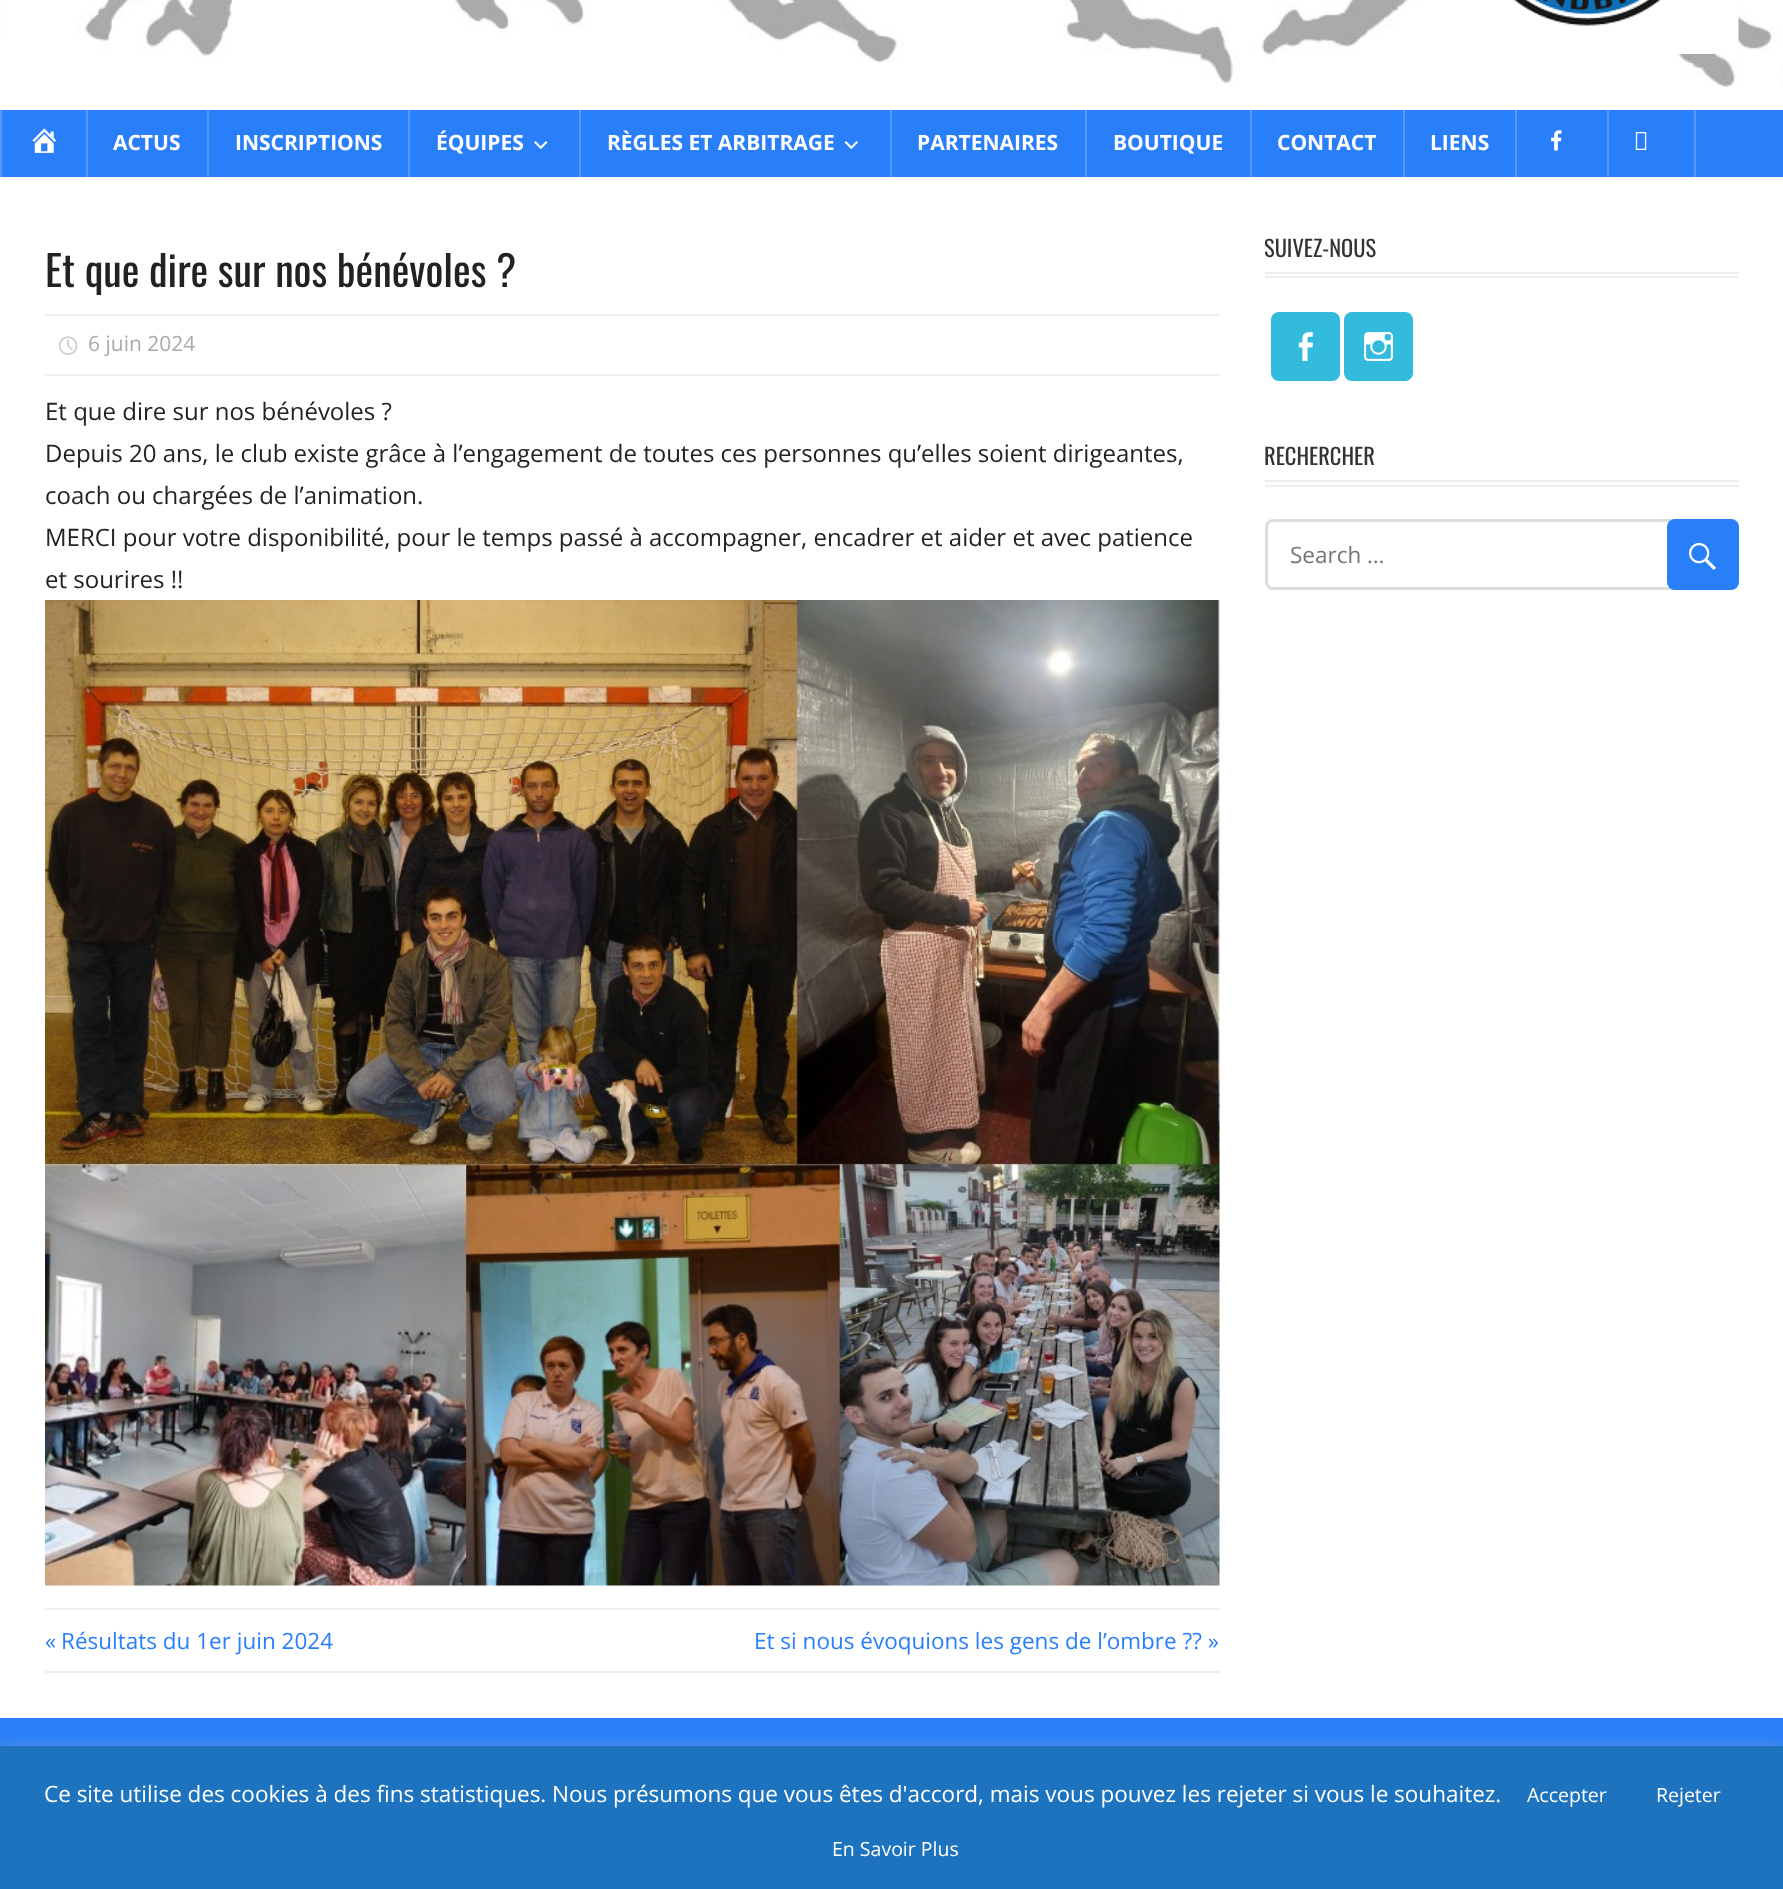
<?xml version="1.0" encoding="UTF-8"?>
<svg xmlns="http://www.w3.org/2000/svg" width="1783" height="1889">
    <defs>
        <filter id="blur1" x="-50%" y="-200%" width="200%" height="500%"><feGaussianBlur stdDeviation="7.5"/></filter>
    </defs>
    <rect width="100%" height="100%" fill="#FFFFFF"/>
    <image x="1" y="0" width="1782" height="87" href="img_01.png"/>
    <image x="1513" y="0" width="226" height="54" href="img_02.png"/>
    <rect x="2" y="110" width="1781" height="67" fill="#297FFA"/>
    <rect x="0" y="110" width="2" height="67" fill="#5499FB"/>
    <rect x="86" y="110" width="2" height="67" fill="#5499FB"/>
    <image x="32" y="128" width="24" height="25" href="img_03.png"/>
    <rect x="207" y="110" width="2" height="67" fill="#5499FB"/>
    <text x="113" y="150" font-family="Open Sans" font-size="21" font-weight="700" fill="#FFFFFF">ACTUS</text>
    <rect x="408" y="110" width="2" height="67" fill="#5499FB"/>
    <text x="235" y="150" font-family="Open Sans" font-size="21" font-weight="700" fill="#FFFFFF">INSCRIPTIONS</text>
    <rect x="579" y="110" width="2" height="67" fill="#5499FB"/>
    <text x="436" y="150" font-family="Open Sans" font-size="21" font-weight="700" fill="#FFFFFF">ÉQUIPES</text>
    <image x="534" y="141" width="14" height="9" href="img_04.png"/>
    <rect x="890" y="110" width="2" height="67" fill="#5499FB"/>
    <text x="607" y="150" font-family="Open Sans" font-size="21" font-weight="700" fill="#FFFFFF">RÈGLES ET ARBITRAGE</text>
    <image x="844" y="141" width="14" height="9" href="img_05.png"/>
    <rect x="1085" y="110" width="2" height="67" fill="#5499FB"/>
    <text x="917" y="150" font-family="Open Sans" font-size="21" font-weight="700" fill="#FFFFFF">PARTENAIRES</text>
    <rect x="1250" y="110" width="2" height="67" fill="#5499FB"/>
    <text x="1113" y="150" font-family="Open Sans" font-size="21" font-weight="700" fill="#FFFFFF">BOUTIQUE</text>
    <rect x="1403" y="110" width="2" height="67" fill="#5499FB"/>
    <text x="1277" y="150" font-family="Open Sans" font-size="21" font-weight="700" fill="#FFFFFF">CONTACT</text>
    <rect x="1515" y="110" width="2" height="67" fill="#5499FB"/>
    <text x="1430" y="150" font-family="Open Sans" font-size="21" font-weight="700" fill="#FFFFFF">LIENS</text>
    <rect x="1607" y="110" width="2" height="67" fill="#5499FB"/>
    <image x="1551" y="130" width="11" height="21" href="img_06.png"/>
    <rect x="1694" y="110" width="2" height="67" fill="#5499FB"/>
    <image x="1635" y="132" width="12" height="18" href="img_07.png"/>
    <text x="45" y="287" font-family="Oswald" font-size="42" fill="#222222">Et que dire sur nos bénévoles ?</text>
    <rect x="45" y="314" width="1175" height="2" fill="#EEEEEE"/>
    <rect x="45" y="374" width="1175" height="2" fill="#EEEEEE"/>
    <image x="58" y="336" width="20" height="19" href="img_08.png"/>
    <text x="88" y="351" font-family="Open Sans" font-size="21" fill="#AAAAAA">6 juin 2024</text>
    <text font-family="Open Sans" font-size="24" fill="#222222">
        <tspan x="45" y="420">Et que dire sur nos bénévoles ?</tspan>
        <tspan x="45" y="462">Depuis 20 ans, le club existe grâce à l’engagement de toutes ces personnes qu’elles soient dirigeantes,</tspan>
        <tspan x="45" y="504">coach ou chargées de l’animation.</tspan>
        <tspan x="45" y="546">MERCI pour votre disponibilité, pour le temps passé à accompagner, encadrer et aider et avec patience</tspan>
        <tspan x="45" y="588">et sourires !!</tspan>
    </text>
    <image x="45" y="600" width="1175" height="986" href="img_09.png"/>
    <rect x="45" y="1608" width="1175" height="2" fill="#EEEEEE"/>
    <rect x="45" y="1671" width="1175" height="2" fill="#EEEEEE"/>
    <text x="45" y="1649" font-family="Open Sans" font-size="22.5" fill="#297FFA">«</text>
    <text x="61" y="1649" font-family="Open Sans" font-size="22.5" fill="#297FFA">Résultats du 1er juin 2024</text>
    <text x="754" y="1649" font-family="Open Sans" font-size="22.5" fill="#297FFA">Et si nous évoquions les gens de l’ombre ?? »</text>
    <rect x="1265" y="276" width="474" height="2" fill="#EEEEEE"/>
    <rect x="1265" y="272" width="474" height="2" fill="#EEEEEE"/>
    <text x="1264" y="257" font-family="Oswald" font-size="22.5" fill="#333333">SUIVEZ-NOUS</text>
    <rect x="1271" y="312" width="69" height="69" rx="8" fill="#33BBDD"/>
    <image x="1298" y="332" width="15" height="29" href="img_10.png"/>
    <rect x="1344" y="312" width="69" height="69" rx="8" fill="#33BBDD"/>
    <image x="1364" y="332" width="29" height="29" href="img_11.png"/>
    <rect x="1265" y="485" width="474" height="2" fill="#EEEEEE"/>
    <rect x="1265" y="480" width="474" height="2" fill="#EEEEEE"/>
    <text x="1264" y="465" font-family="Oswald" font-size="22.5" fill="#333333">RECHERCHER</text>
    <rect x="1266.5" y="520.5" width="471" height="68" rx="6.5" fill="none" stroke="#DDDDDD" stroke-width="3"/>
    <text x="1290" y="563" font-family="Open Sans" font-size="22.5" fill="#757575">Search …</text>
    <rect x="1667" y="519" width="72" height="71" rx="8" fill="#297FFA"/>
    <image x="1689" y="543" width="27" height="27" href="img_12.png"/>
    <rect x="0" y="1718" width="1783" height="28" fill="#297FFA"/>
    <rect x="0" y="1745" width="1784" height="144" fill="#ACABAB" fill-opacity="0.3" filter="url(#blur1)"/>
    <rect x="0" y="1746" width="1783" height="143" fill="#1E73BE"/>
    <text x="44" y="1802" font-family="Open Sans" font-size="22.5" fill="#FFFFFF">Ce site utilise des cookies à des fins statistiques. Nous présumons que vous êtes d'accord, mais vous pouvez les rejeter si vous le souhaitez.</text>
    <text x="1527" y="1802" font-family="Open Sans" font-size="19.5" fill="#FFFFFF">Accepter</text>
    <text x="1656" y="1802" font-family="Open Sans" font-size="19.5" fill="#FFFFFF">Rejeter</text>
    <text x="832" y="1856" font-family="Open Sans" font-size="19.5" fill="#FFFFFF">En Savoir Plus</text>
</svg>
